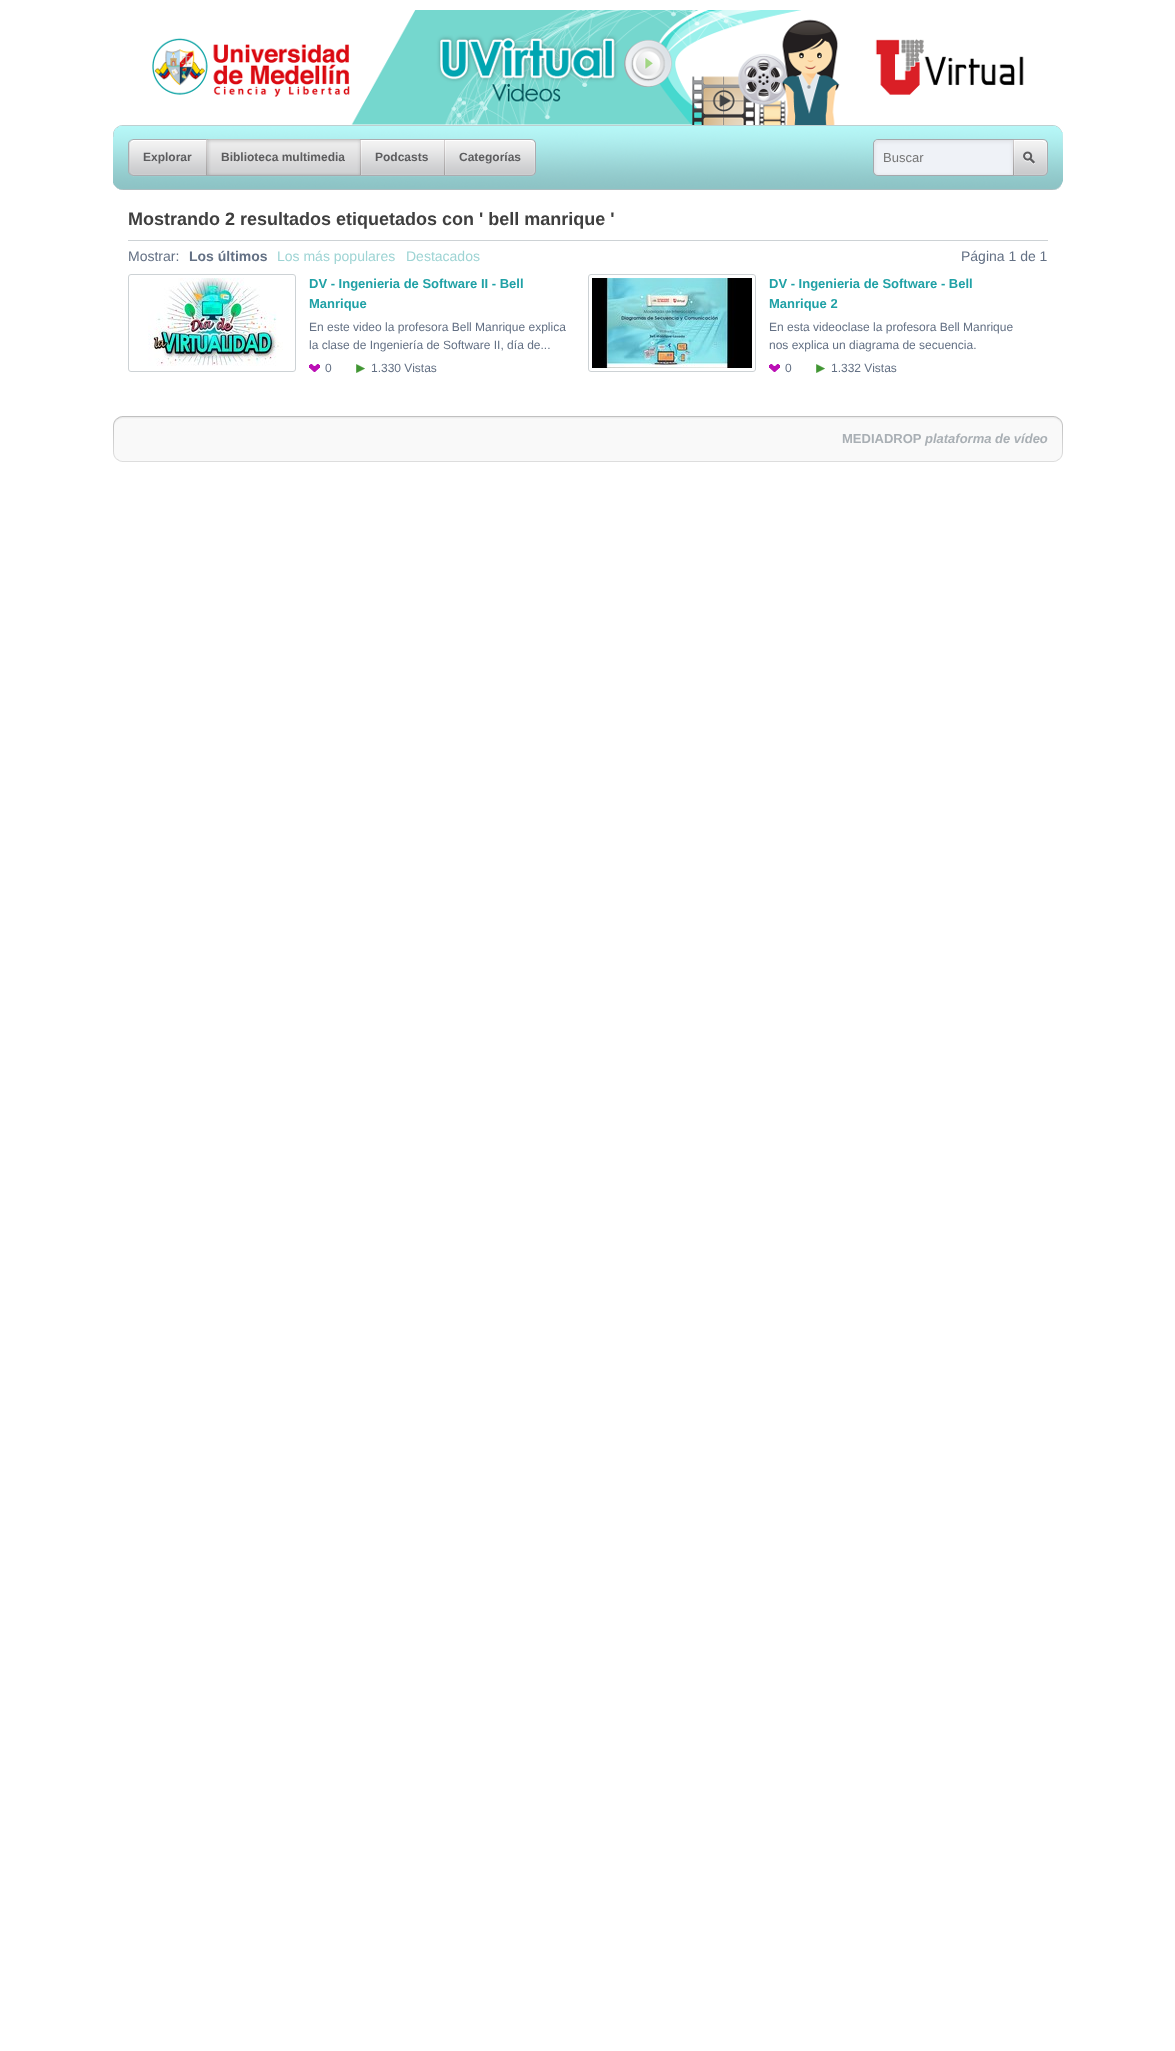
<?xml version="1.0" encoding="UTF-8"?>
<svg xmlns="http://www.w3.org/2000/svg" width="1175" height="2051">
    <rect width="100%" height="100%" fill="#FFFFFF"/>
    <image x="152" y="10" width="872" height="115" href="img_01.png"/>
    <image x="113" y="125" width="950" height="65" href="img_02.png"/>
    <image x="128" y="139" width="6" height="38" href="img_03.png"/>
    <image x="133" y="139" width="68" height="38" href="img_04.png"/>
    <text x="143" y="161" font-family="Liberation Sans" font-size="12" font-weight="700" fill="#5C5C5E">Explorar</text>
    <image x="201" y="139" width="5" height="38" href="img_05.png"/>
    <image x="206" y="139" width="5" height="38" href="img_06.png"/>
    <image x="211" y="139" width="144" height="38" href="img_07.png"/>
    <text x="221" y="161" font-family="Liberation Sans" font-size="12" font-weight="700" fill="#5C5C5E">Biblioteca multimedia</text>
    <image x="355" y="139" width="5" height="38" href="img_08.png"/>
    <image x="360" y="139" width="5" height="38" href="img_09.png"/>
    <image x="365" y="139" width="74" height="38" href="img_10.png"/>
    <text x="375" y="161" font-family="Liberation Sans" font-size="12" font-weight="700" fill="#5C5C5E">Podcasts</text>
    <image x="439" y="139" width="5" height="38" href="img_11.png"/>
    <image x="444" y="139" width="5" height="38" href="img_12.png"/>
    <image x="449" y="139" width="82" height="38" href="img_13.png"/>
    <text x="459" y="161" font-family="Liberation Sans" font-size="12" font-weight="700" fill="#5C5C5E">Categorías</text>
    <image x="531" y="139" width="5" height="38" href="img_14.png"/>
    <image x="873" y="139" width="141" height="37" href="img_15.png"/>
    <text x="883" y="162" font-family="Liberation Sans" font-size="13" fill="#757575">Buscar</text>
    <image x="1014" y="139" width="34" height="38" href="img_16.png"/>
    <text x="128" y="225" font-family="Liberation Sans" font-size="18" font-weight="700" fill="#3F3F3F">Mostrando 2 resultados etiquetados con ' bell manrique '</text>
    <rect x="128" y="240" width="920" height="1" fill="#CDD2D5"/>
    <text x="128" y="261" font-family="Liberation Sans" font-size="14" fill="#637084">Mostrar:</text>
    <text x="189" y="261" font-family="Liberation Sans" font-size="14" font-weight="700" fill="#637084">Los últimos</text>
    <text x="277" y="261" font-family="Liberation Sans" font-size="14" fill="#9ED4D4">Los más populares</text>
    <text x="406" y="261" font-family="Liberation Sans" font-size="14" fill="#9ED4D4">Destacados</text>
    <text x="961" y="261" font-family="Liberation Sans" font-size="14" fill="#637084">Página 1 de 1</text>
    <rect x="128.5" y="274.5" width="167" height="97" rx="2.5" fill="none" stroke="#CDD2D5"/>
    <image x="148" y="278" width="135" height="88" href="img_17.png"/>
    <text font-family="Liberation Sans" font-size="13" font-weight="700" fill="#20A1A6">
        <tspan x="309" y="288">DV - Ingenieria de Software II - Bell</tspan>
        <tspan x="309" y="308">Manrique</tspan>
    </text>
    <text font-family="Liberation Sans" font-size="12" fill="#637084">
        <tspan x="309" y="331">En este video la profesora Bell Manrique explica</tspan>
        <tspan x="309" y="349">la clase de Ingeniería de Software II, día de...</tspan>
    </text>
    <image x="309" y="364" width="11" height="8" href="img_18.png"/>
    <text x="325" y="372" font-family="Liberation Sans" font-size="12" fill="#637084">0</text>
    <image x="356" y="364" width="9" height="9" href="img_19.png"/>
    <text x="371" y="372" font-family="Liberation Sans" font-size="12" fill="#637084">1.330 Vistas</text>
    <rect x="588.5" y="274.5" width="167" height="97" rx="2.5" fill="none" stroke="#CDD2D5"/>
    <image x="592" y="278" width="160" height="90" href="img_20.png"/>
    <text font-family="Liberation Sans" font-size="13" font-weight="700" fill="#20A1A6">
        <tspan x="769" y="288">DV - Ingenieria de Software - Bell</tspan>
        <tspan x="769" y="308">Manrique 2</tspan>
    </text>
    <text font-family="Liberation Sans" font-size="12" fill="#637084">
        <tspan x="769" y="331">En esta videoclase la profesora Bell Manrique</tspan>
        <tspan x="769" y="349">nos explica un diagrama de secuencia.</tspan>
    </text>
    <image x="769" y="364" width="11" height="8" href="img_18.png"/>
    <text x="785" y="372" font-family="Liberation Sans" font-size="12" fill="#637084">0</text>
    <image x="816" y="364" width="9" height="9" href="img_19.png"/>
    <text x="831" y="372" font-family="Liberation Sans" font-size="12" fill="#637084">1.332 Vistas</text>
    <image x="113" y="416" width="950" height="46" href="img_21.png"/>
    <text x="842" y="443" font-family="Liberation Sans" font-size="13" font-weight="700" fill="#A9AFB4">MEDIADROP</text>
    <text x="925" y="443" font-family="Liberation Sans" font-size="13" font-weight="700" font-style="italic" fill="#A9AFB4">plataforma de vídeo</text>
</svg>
